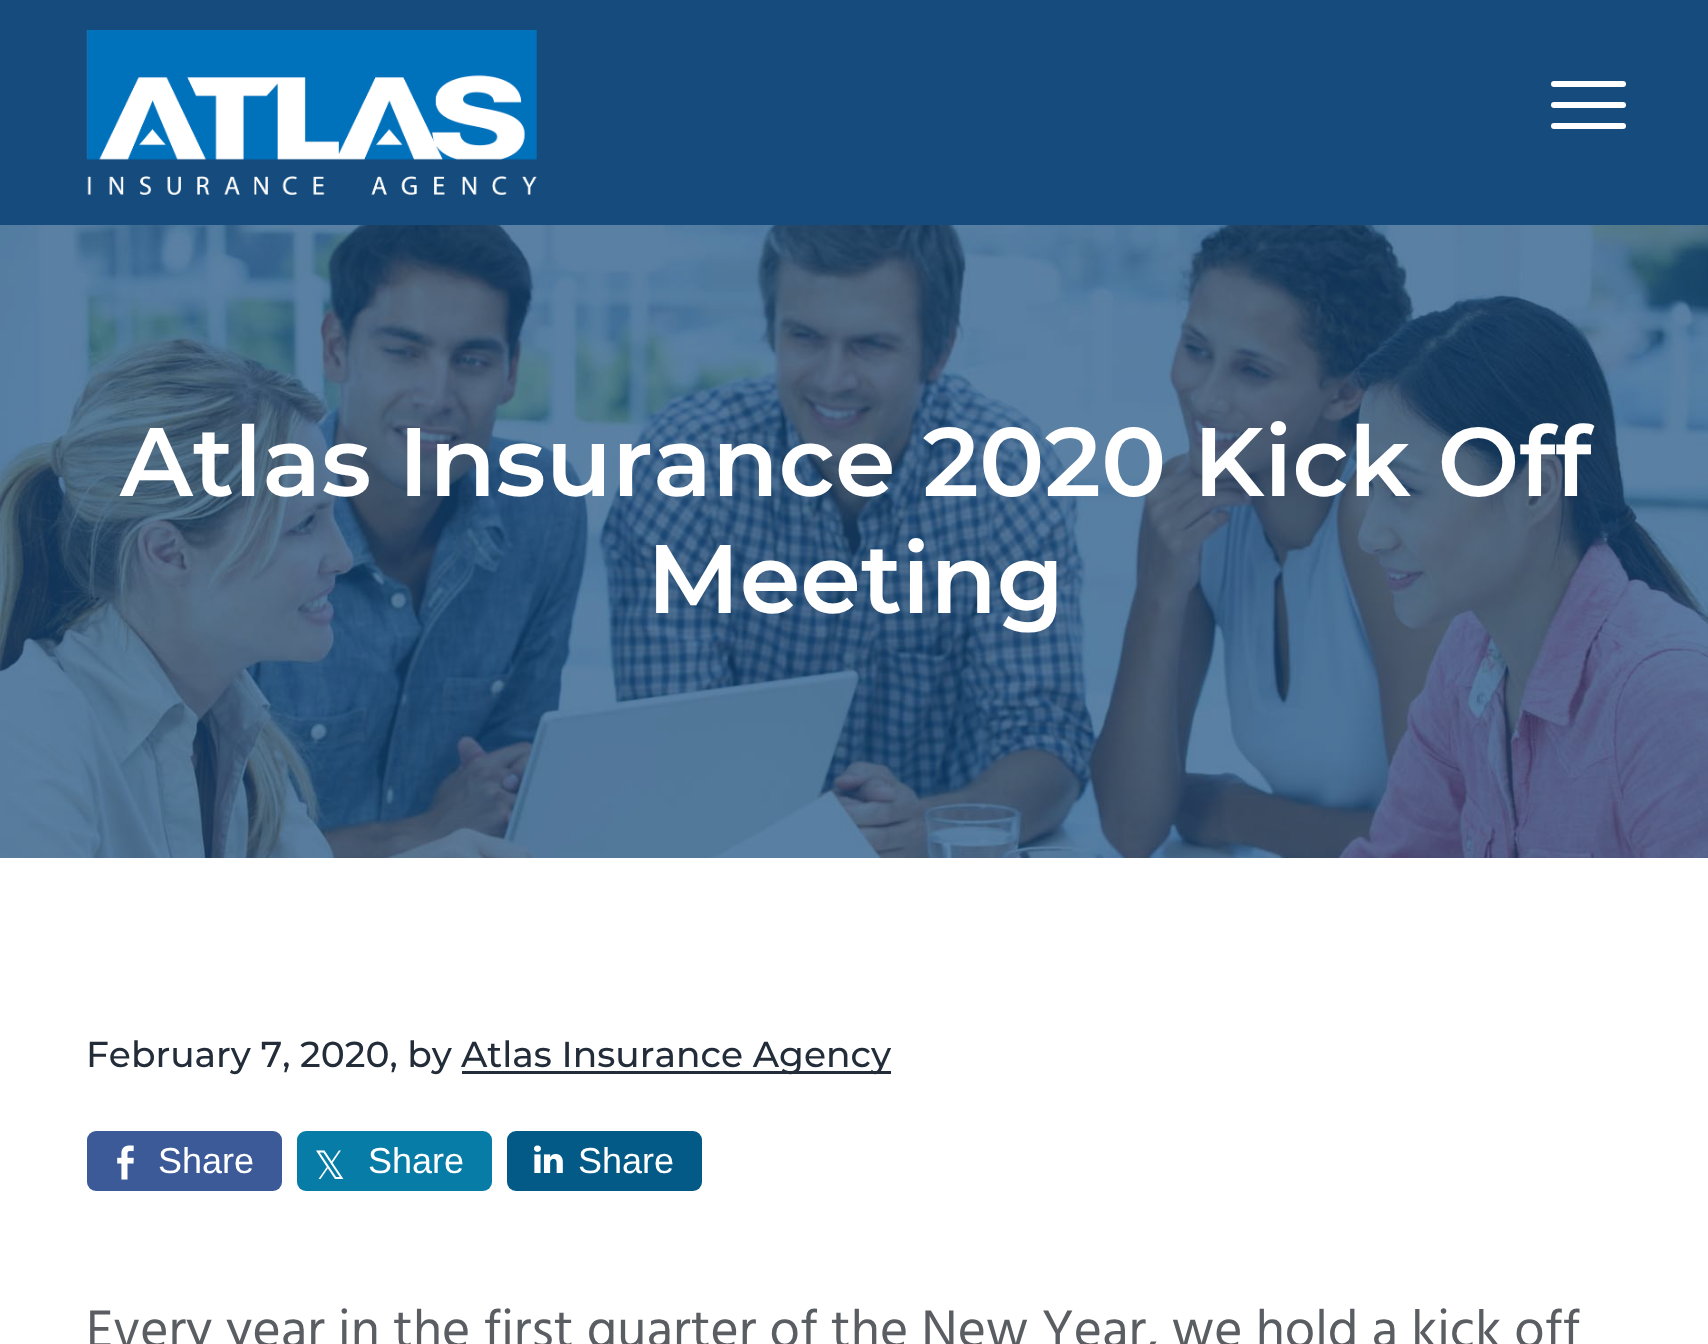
<?xml version="1.0" encoding="UTF-8"?>
<svg xmlns="http://www.w3.org/2000/svg" width="1708" height="1344">
    <style>*{font-kerning:none!important;font-variant-ligatures:none!important}</style>
    <rect width="100%" height="100%" fill="#FFFFFF"/>
    <rect x="0" y="0" width="1708" height="225" fill="#154B7D"/>
    <image x="86" y="30" width="451" height="165" href="img_01.png"/>
    <rect x="1551" y="102" width="75" height="6" rx="3" fill="#FFFFFF"/>
    <rect x="1551" y="81" width="75" height="6" rx="3" fill="#FFFFFF"/>
    <rect x="1551" y="123" width="75" height="6" rx="3" fill="#FFFFFF"/>
    <image x="0" y="225" width="1708" height="633" href="img_02.png"/>
    <text x="120" y="496" font-family="Montserrat" font-size="97.25" font-weight="600" fill="#FFFFFF">Atlas Insurance 2020 Kick Off</text>
    <text x="647" y="613" font-family="Montserrat" font-size="97.25" font-weight="600" fill="#FFFFFF">Meeting</text>
    <text x="86" y="1067" font-family="Montserrat" font-size="36" font-weight="500" fill="#232C39">February 7, 2020, by</text>
    <rect x="462" y="1071" width="429" height="3" fill="#232C39"/>
    <text x="461" y="1067" font-family="Montserrat" font-size="36" font-weight="500" fill="#232C39">Atlas Insurance Agency</text>
    <rect x="87" y="1131" width="195" height="60" rx="9" fill="#3D5A98"/>
    <image x="117" y="1145" width="17" height="35" href="img_03.png"/>
    <text x="158" y="1173" font-family="Liberation Sans" font-size="36" fill="#FFFFFF">Share</text>
    <rect x="297" y="1131" width="195" height="60" rx="9" fill="#067CA7"/>
    <text x="314" y="1179" font-family="DejaVu Sans" font-size="39" fill="#FFFFFF">𝕏</text>
    <text x="368" y="1173" font-family="Liberation Sans" font-size="36" fill="#FFFFFF">Share</text>
    <rect x="507" y="1131" width="195" height="60" rx="9" fill="#035A87"/>
    <image x="534" y="1145" width="29" height="28" href="img_04.png"/>
    <text x="578" y="1173" font-family="Liberation Sans" font-size="36" fill="#FFFFFF">Share</text>
    <text x="86" y="1347" font-family="Hind" font-size="54" fill="#5A5E62">Every year in the first quarter of the New Year, we hold a kick off</text>
</svg>
